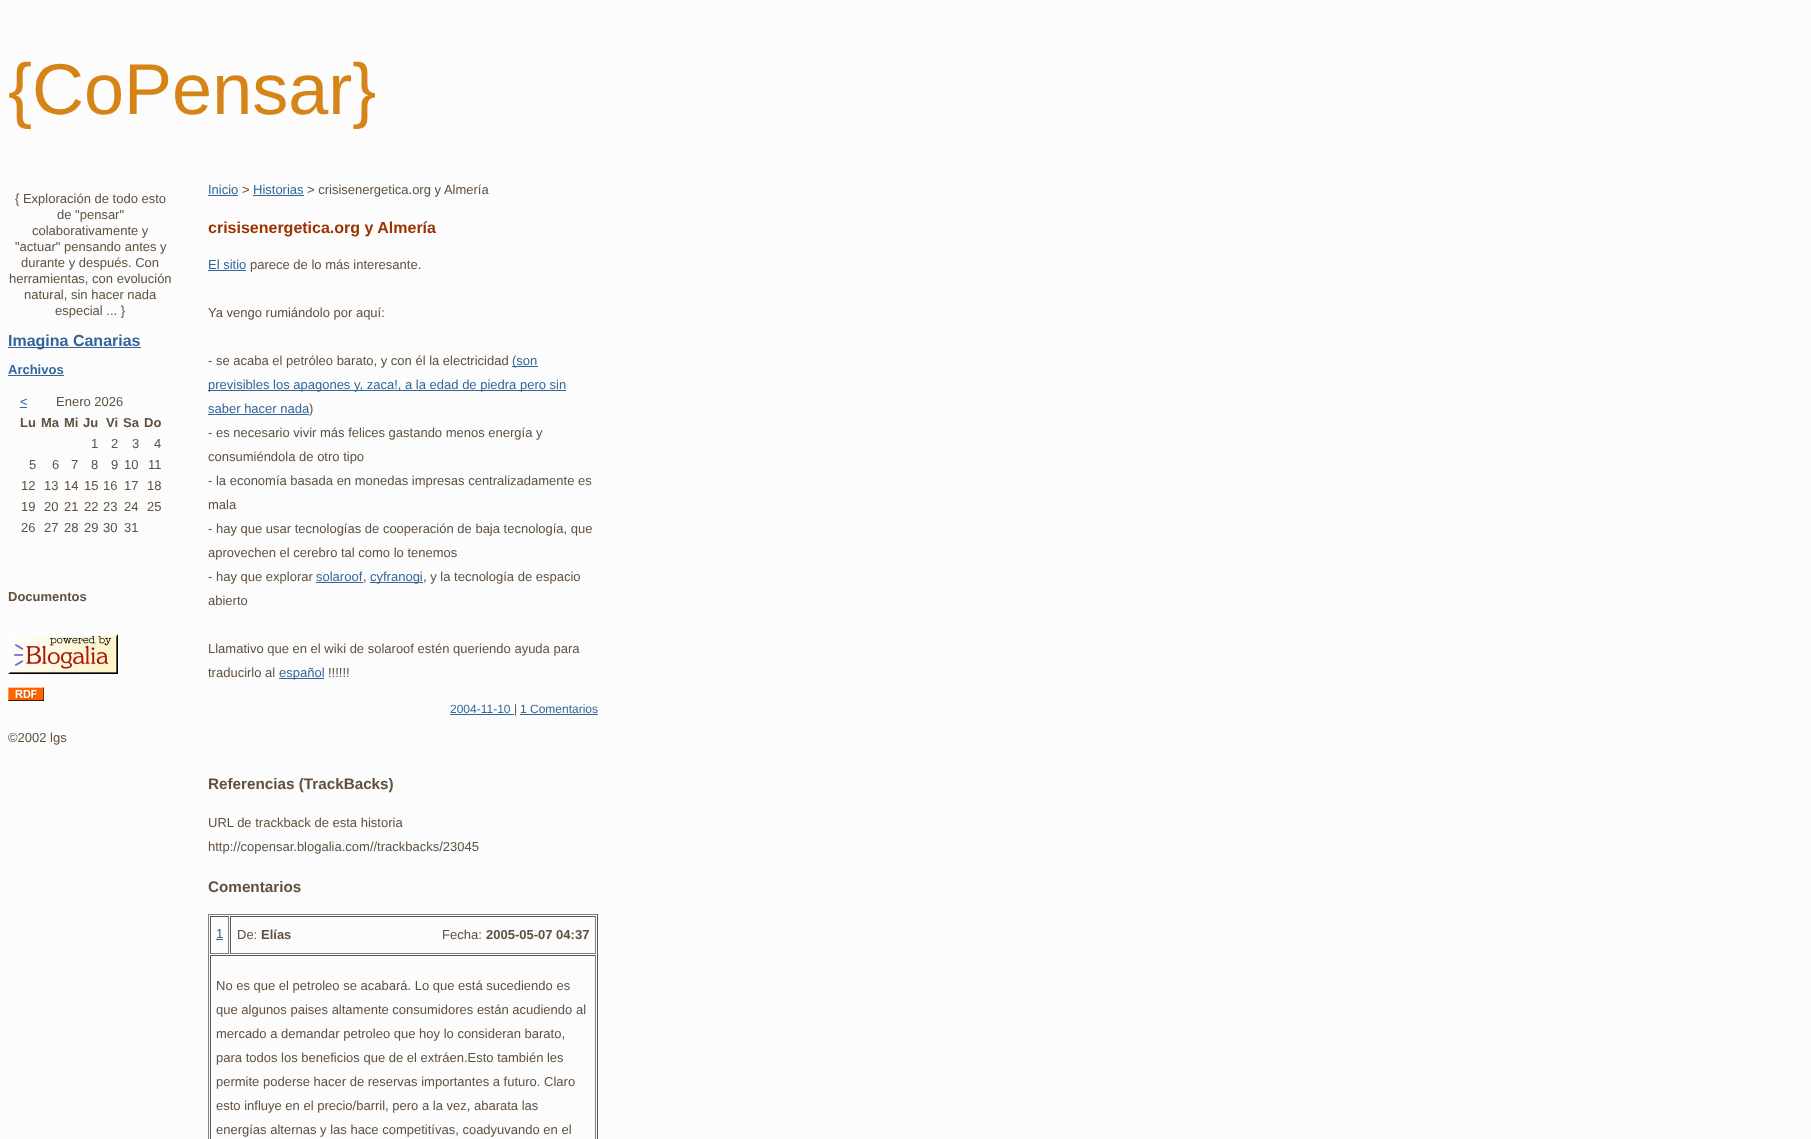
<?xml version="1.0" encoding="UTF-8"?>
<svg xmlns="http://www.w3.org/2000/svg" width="1811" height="1139">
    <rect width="100%" height="100%" fill="#FCFCFC"/>
    <text x="8" y="114" font-family="Liberation Sans" font-size="72" fill="#D68418">{CoPensar}</text>
    <text x="15" y="203" font-family="Liberation Sans" font-size="13" fill="#605040">{ Exploración de todo esto</text>
    <text x="57" y="219" font-family="Liberation Sans" font-size="13" fill="#605040">de "pensar"</text>
    <text x="32" y="235" font-family="Liberation Sans" font-size="13" fill="#605040">colaborativamente y</text>
    <text x="15" y="251" font-family="Liberation Sans" font-size="13" fill="#605040">"actuar" pensando antes y</text>
    <text x="21" y="267" font-family="Liberation Sans" font-size="13" fill="#605040">durante y después. Con</text>
    <text x="9" y="283" font-family="Liberation Sans" font-size="13" fill="#605040">herramientas, con evolución</text>
    <text x="24" y="299" font-family="Liberation Sans" font-size="13" fill="#605040">natural, sin hacer nada</text>
    <text x="55" y="315" font-family="Liberation Sans" font-size="13" fill="#605040">especial ... }</text>
    <rect x="8" y="347" width="133" height="1" fill="#336699"/>
    <text x="8" y="346" font-family="Liberation Sans" font-size="16" font-weight="700" fill="#336699">Imagina Canarias</text>
    <text x="8" y="374" font-family="Liberation Sans" font-size="13" font-weight="700" fill="#336699">Archivos</text>
    <rect x="8" y="375" width="56" height="1" fill="#336699"/>
    <text x="20" y="406" font-family="Liberation Sans" font-size="13" fill="#336699">&lt;</text>
    <rect x="20" y="407" width="7" height="1" fill="#336699"/>
    <text x="56" y="406" font-family="Liberation Sans" font-size="13" fill="#605040">Enero 2026</text>
    <text x="20" y="427" font-family="Liberation Sans" font-size="13" font-weight="700" fill="#605040">Lu</text>
    <text x="41" y="427" font-family="Liberation Sans" font-size="13" font-weight="700" fill="#605040">Ma</text>
    <text x="64" y="427" font-family="Liberation Sans" font-size="13" font-weight="700" fill="#605040">Mi</text>
    <text x="83" y="427" font-family="Liberation Sans" font-size="13" font-weight="700" fill="#605040">Ju</text>
    <text x="106" y="427" font-family="Liberation Sans" font-size="13" font-weight="700" fill="#605040">Vi</text>
    <text x="123" y="427" font-family="Liberation Sans" font-size="13" font-weight="700" fill="#605040">Sa</text>
    <text x="144" y="427" font-family="Liberation Sans" font-size="13" font-weight="700" fill="#605040">Do</text>
    <text x="91" y="448" font-family="Liberation Sans" font-size="13" fill="#605040">1</text>
    <text x="111" y="448" font-family="Liberation Sans" font-size="13" fill="#605040">2</text>
    <text x="132" y="448" font-family="Liberation Sans" font-size="13" fill="#605040">3</text>
    <text x="154" y="448" font-family="Liberation Sans" font-size="13" fill="#605040">4</text>
    <text x="29" y="469" font-family="Liberation Sans" font-size="13" fill="#605040">5</text>
    <text x="52" y="469" font-family="Liberation Sans" font-size="13" fill="#605040">6</text>
    <text x="71" y="469" font-family="Liberation Sans" font-size="13" fill="#605040">7</text>
    <text x="91" y="469" font-family="Liberation Sans" font-size="13" fill="#605040">8</text>
    <text x="111" y="469" font-family="Liberation Sans" font-size="13" fill="#605040">9</text>
    <text x="124" y="469" font-family="Liberation Sans" font-size="13" fill="#605040">10</text>
    <text x="148" y="469" font-family="Liberation Sans" font-size="13" fill="#605040">11</text>
    <text x="21" y="490" font-family="Liberation Sans" font-size="13" fill="#605040">12</text>
    <text x="44" y="490" font-family="Liberation Sans" font-size="13" fill="#605040">13</text>
    <text x="64" y="490" font-family="Liberation Sans" font-size="13" fill="#605040">14</text>
    <text x="84" y="490" font-family="Liberation Sans" font-size="13" fill="#605040">15</text>
    <text x="103" y="490" font-family="Liberation Sans" font-size="13" fill="#605040">16</text>
    <text x="124" y="490" font-family="Liberation Sans" font-size="13" fill="#605040">17</text>
    <text x="147" y="490" font-family="Liberation Sans" font-size="13" fill="#605040">18</text>
    <text x="21" y="511" font-family="Liberation Sans" font-size="13" fill="#605040">19</text>
    <text x="44" y="511" font-family="Liberation Sans" font-size="13" fill="#605040">20</text>
    <text x="64" y="511" font-family="Liberation Sans" font-size="13" fill="#605040">21</text>
    <text x="84" y="511" font-family="Liberation Sans" font-size="13" fill="#605040">22</text>
    <text x="103" y="511" font-family="Liberation Sans" font-size="13" fill="#605040">23</text>
    <text x="124" y="511" font-family="Liberation Sans" font-size="13" fill="#605040">24</text>
    <text x="147" y="511" font-family="Liberation Sans" font-size="13" fill="#605040">25</text>
    <text x="21" y="532" font-family="Liberation Sans" font-size="13" fill="#605040">26</text>
    <text x="44" y="532" font-family="Liberation Sans" font-size="13" fill="#605040">27</text>
    <text x="64" y="532" font-family="Liberation Sans" font-size="13" fill="#605040">28</text>
    <text x="84" y="532" font-family="Liberation Sans" font-size="13" fill="#605040">29</text>
    <text x="103" y="532" font-family="Liberation Sans" font-size="13" fill="#605040">30</text>
    <text x="124" y="532" font-family="Liberation Sans" font-size="13" fill="#605040">31</text>
    <text x="8" y="601" font-family="Liberation Sans" font-size="13" font-weight="700" fill="#605040">Documentos</text>
    <image x="8" y="634" width="110" height="40" href="img_01.png"/>
    <image x="8" y="687" width="36" height="14" href="img_02.png"/>
    <text x="8" y="742" font-family="Liberation Sans" font-size="13" fill="#605040">©2002 lgs</text>
    <text x="208" y="194" font-family="Liberation Sans" font-size="13" fill="#336699">Inicio</text>
    <rect x="208" y="195" width="30" height="1" fill="#336699"/>
    <text x="242" y="194" font-family="Liberation Sans" font-size="13" fill="#605040">&gt;</text>
    <text x="253" y="194" font-family="Liberation Sans" font-size="13" fill="#336699">Historias</text>
    <rect x="253" y="195" width="51" height="1" fill="#336699"/>
    <text x="307" y="194" font-family="Liberation Sans" font-size="13" fill="#605040">&gt; crisisenergetica.org y Almería</text>
    <text x="208" y="233" font-family="Liberation Sans" font-size="16" font-weight="700" fill="#993300">crisisenergetica.org y Almería</text>
    <text x="208" y="269" font-family="Liberation Sans" font-size="13" fill="#336699">El sitio</text>
    <rect x="208" y="270" width="38" height="1" fill="#336699"/>
    <text x="250" y="269" font-family="Liberation Sans" font-size="13" fill="#605040">parece de lo más interesante.</text>
    <text x="208" y="317" font-family="Liberation Sans" font-size="13" fill="#605040">Ya vengo rumiándolo por aquí:</text>
    <text x="208" y="365" font-family="Liberation Sans" font-size="13" fill="#605040">- se acaba el petróleo barato, y con él la electricidad</text>
    <rect x="512" y="366" width="26" height="1" fill="#336699"/>
    <text x="512" y="365" font-family="Liberation Sans" font-size="13" fill="#336699">(son</text>
    <rect x="208" y="390" width="358" height="1" fill="#336699"/>
    <text font-family="Liberation Sans" font-size="13" fill="#336699">
        <tspan x="208" y="389">previsibles los apagones y, zaca!, a la edad de piedra pero sin</tspan>
        <tspan x="208" y="413">saber hacer nada</tspan>
    </text>
    <rect x="208" y="414" width="101" height="1" fill="#336699"/>
    <text x="309" y="413" font-family="Liberation Sans" font-size="13" fill="#605040">)</text>
    <text font-family="Liberation Sans" font-size="13" fill="#605040">
        <tspan x="208" y="437">- es necesario vivir más felices gastando menos energía y</tspan>
        <tspan x="208" y="461">consumiéndola de otro tipo</tspan>
        <tspan x="208" y="485">- la economía basada en monedas impresas centralizadamente es</tspan>
        <tspan x="208" y="509">mala</tspan>
        <tspan x="208" y="533">- hay que usar tecnologías de cooperación de baja tecnología, que</tspan>
        <tspan x="208" y="557">aprovechen el cerebro tal como lo tenemos</tspan>
        <tspan x="208" y="581">- hay que explorar</tspan>
    </text>
    <text x="316" y="581" font-family="Liberation Sans" font-size="13" fill="#336699">solaroof</text>
    <rect x="316" y="582" width="47" height="1" fill="#336699"/>
    <text x="363" y="581" font-family="Liberation Sans" font-size="13" fill="#605040">,</text>
    <rect x="370" y="582" width="53" height="1" fill="#336699"/>
    <text x="370" y="581" font-family="Liberation Sans" font-size="13" fill="#336699">cyfranogi</text>
    <text x="423" y="581" font-family="Liberation Sans" font-size="13" fill="#605040">, y la tecnología de espacio</text>
    <text x="208" y="605" font-family="Liberation Sans" font-size="13" fill="#605040">abierto</text>
    <text font-family="Liberation Sans" font-size="13" fill="#605040">
        <tspan x="208" y="653">Llamativo que en el wiki de solaroof estén queriendo ayuda para</tspan>
        <tspan x="208" y="677">traducirlo al</tspan>
    </text>
    <rect x="279" y="678" width="45" height="1" fill="#336699"/>
    <text x="279" y="677" font-family="Liberation Sans" font-size="13" fill="#336699">español</text>
    <text x="328" y="677" font-family="Liberation Sans" font-size="13" fill="#605040">!!!!!!</text>
    <text x="450" y="713" font-family="Liberation Sans" font-size="12" fill="#336699">2004-11-10</text>
    <rect x="450" y="714" width="64" height="1" fill="#336699"/>
    <text x="514" y="713" font-family="Liberation Sans" font-size="12" fill="#605040">|</text>
    <text x="520" y="713" font-family="Liberation Sans" font-size="12" fill="#336699">1 Comentarios</text>
    <rect x="520" y="714" width="78" height="1" fill="#336699"/>
    <text x="208" y="789" font-family="Liberation Sans" font-size="15.25" font-weight="700" fill="#605040">Referencias (TrackBacks)</text>
    <text font-family="Liberation Sans" font-size="13" fill="#605040">
        <tspan x="208" y="827">URL de trackback de esta historia</tspan>
        <tspan x="208" y="851">http://copensar.blogalia.com//trackbacks/23045</tspan>
    </text>
    <text x="208" y="892" font-family="Liberation Sans" font-size="15.25" font-weight="700" fill="#605040">Comentarios</text>
    <rect x="208" y="914" width="390" height="1" fill="#808080"/>
    <rect x="597" y="914" width="1" height="225" fill="#555555"/>
    <rect x="208" y="914" width="1" height="225" fill="#808080"/>
    <rect x="210" y="916" width="19" height="1" fill="#555555"/>
    <rect x="228" y="916" width="1" height="38" fill="#808080"/>
    <rect x="210" y="953" width="19" height="1" fill="#808080"/>
    <rect x="210" y="916" width="1" height="38" fill="#555555"/>
    <text x="216" y="938" font-family="Liberation Sans" font-size="13" fill="#336699">1</text>
    <rect x="216" y="939" width="7" height="1" fill="#336699"/>
    <rect x="230" y="916" width="366" height="1" fill="#555555"/>
    <rect x="595" y="916" width="1" height="38" fill="#808080"/>
    <rect x="230" y="953" width="366" height="1" fill="#808080"/>
    <rect x="230" y="916" width="1" height="38" fill="#555555"/>
    <text x="237" y="939" font-family="Liberation Sans" font-size="13" fill="#605040">De:</text>
    <text x="261" y="939" font-family="Liberation Sans" font-size="13" font-weight="700" fill="#605040">Elías</text>
    <text x="442" y="939" font-family="Liberation Sans" font-size="13" fill="#605040">Fecha:</text>
    <text x="486" y="939" font-family="Liberation Sans" font-size="13" font-weight="700" fill="#605040">2005-05-07 04:37</text>
    <rect x="210" y="955" width="386" height="1" fill="#555555"/>
    <rect x="595" y="955" width="1" height="184" fill="#808080"/>
    <rect x="210" y="955" width="1" height="184" fill="#555555"/>
    <text font-family="Liberation Sans" font-size="13" fill="#605040">
        <tspan x="216" y="990">No es que el petroleo se acabará. Lo que está sucediendo es</tspan>
        <tspan x="216" y="1014">que algunos paises altamente consumidores están acudiendo al</tspan>
        <tspan x="216" y="1038">mercado a demandar petroleo que hoy lo consideran barato,</tspan>
        <tspan x="216" y="1062">para todos los beneficios que de el extráen.Esto también les</tspan>
        <tspan x="216" y="1086">permite poderse hacer de reservas importantes a futuro. Claro</tspan>
        <tspan x="216" y="1110">esto influye en el precio/barril, pero a la vez, abarata las</tspan>
        <tspan x="216" y="1134">energías alternas y las hace competitívas, coadyuvando en el</tspan>
    </text>
</svg>
